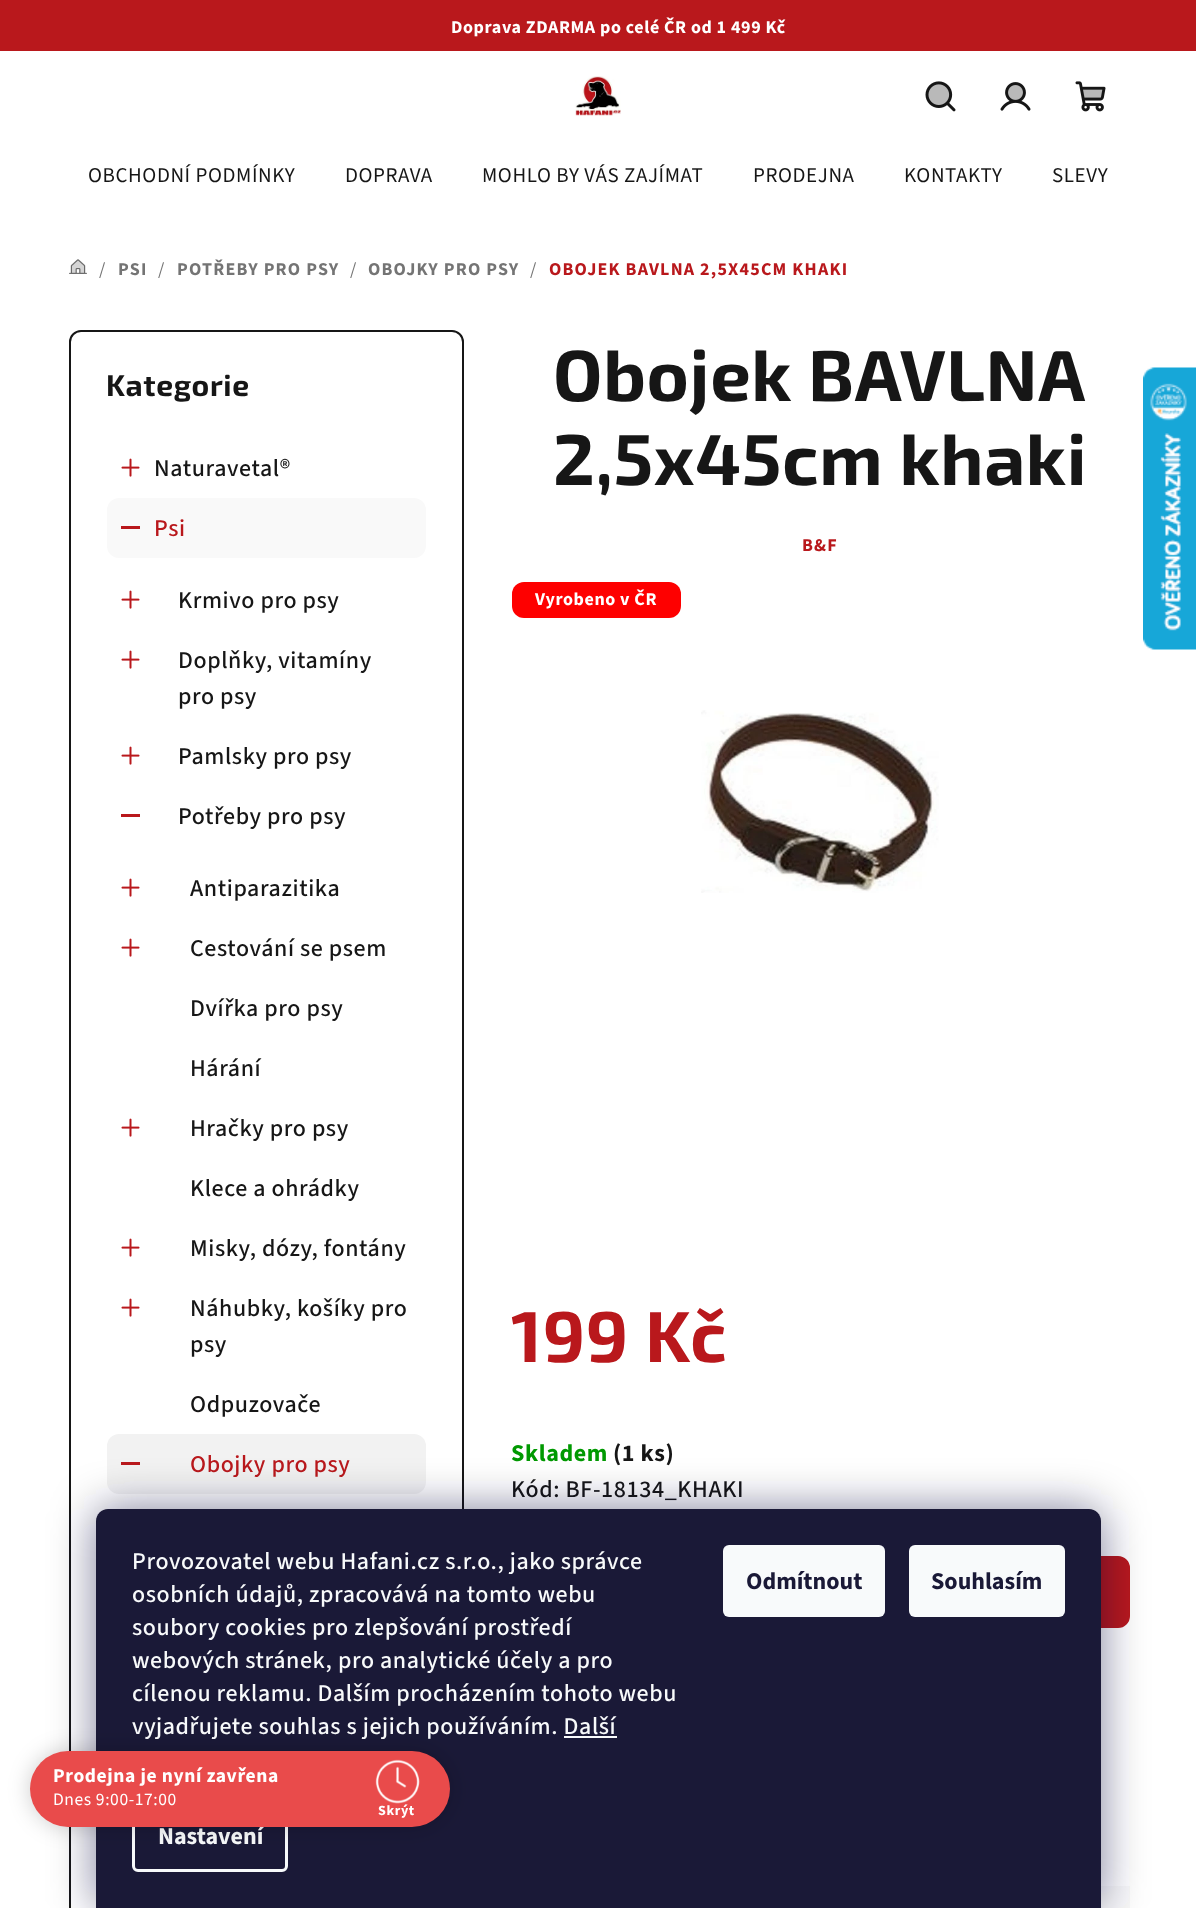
<?xml version="1.0" encoding="UTF-8"?>
<svg xmlns="http://www.w3.org/2000/svg" width="1196" height="1908">
    <defs>
        <filter id="blur1" x="-50%" y="-200%" width="200%" height="500%"><feGaussianBlur stdDeviation="22.5"/></filter>
        <filter id="blur2" x="-50%" y="-200%" width="200%" height="500%"><feGaussianBlur stdDeviation="11"/></filter>
    </defs>
    <rect width="100%" height="100%" fill="#FFFFFF"/>
    <rect x="0" y="0" width="1196" height="51" fill="#B9181C"/>
    <text x="451" y="33" font-family="'Source Sans 3'" font-size="18" font-weight="700" letter-spacing="0.6" fill="#FFFFFF">Doprava ZDARMA po celé ČR od 1 499 Kč</text>
    <image x="575" y="76" width="46" height="40" href="img_01.png"/>
    <image x="925" y="81" width="31" height="31" href="img_02.png"/>
    <path d="M 939 106.5 C 954.5 106.5 954.5 83 939 83 C 923.5 83 923.5 106.5 939 106.5 Z" fill="#161616" fill-opacity="0.3"/>
    <image x="1000" y="82" width="31" height="29" href="img_03.png"/>
    <path d="M 1015.5 101.5 C 1027 101.5 1027 83.5 1015.5 83.5 C 1004 83.5 1004 101.5 1015.5 101.5 Z" fill="#161616" fill-opacity="0.3"/>
    <image x="1075" y="81" width="31" height="31" href="img_04.png"/>
    <path d="M 1083.5 99 H 1097.5 C 1101.5 99 1102 99.5 1102.5 96 L 1104 88 H 1081.5 Z" fill="#161616" fill-opacity="0.3"/>
    <text x="88" y="182" font-family="'Source Sans 3'" font-size="21" letter-spacing="0.6" fill="#161616">OBCHODNÍ PODMÍNKY</text>
    <text x="345" y="182" font-family="'Source Sans 3'" font-size="21" letter-spacing="0.6" fill="#161616">DOPRAVA</text>
    <text x="482" y="182" font-family="'Source Sans 3'" font-size="21" letter-spacing="0.6" fill="#161616">MOHLO BY VÁS ZAJÍMAT</text>
    <text x="753" y="182" font-family="'Source Sans 3'" font-size="21" letter-spacing="0.6" fill="#161616">PRODEJNA</text>
    <text x="904" y="182" font-family="'Source Sans 3'" font-size="21" letter-spacing="0.6" fill="#161616">KONTAKTY</text>
    <text x="1052" y="182" font-family="'Source Sans 3'" font-size="21" letter-spacing="0.6" fill="#161616">SLEVY</text>
    <image x="69" y="259" width="18" height="15" href="img_05.png"/>
    <image x="71" y="260" width="14" height="14" href="img_06.png"/>
    <text x="99" y="275" font-family="'Source Sans 3'" font-size="18" letter-spacing="1.2" fill="#747474">/</text>
    <text x="118" y="275" font-family="'Source Sans 3'" font-size="18" font-weight="700" letter-spacing="1.2" fill="#747474">PSI</text>
    <text x="158" y="275" font-family="'Source Sans 3'" font-size="18" letter-spacing="1.2" fill="#747474">/</text>
    <text x="177" y="275" font-family="'Source Sans 3'" font-size="18" font-weight="700" letter-spacing="1.2" fill="#747474">POTŘEBY PRO PSY</text>
    <text x="350" y="275" font-family="'Source Sans 3'" font-size="18" letter-spacing="1.2" fill="#747474">/</text>
    <text x="368" y="275" font-family="'Source Sans 3'" font-size="18" font-weight="700" letter-spacing="1.2" fill="#747474">OBOJKY PRO PSY</text>
    <text x="530" y="275" font-family="'Source Sans 3'" font-size="18" letter-spacing="1.2" fill="#747474">/</text>
    <text x="549" y="275" font-family="'Source Sans 3'" font-size="18" font-weight="700" letter-spacing="1.2" fill="#B9181C">OBOJEK BAVLNA 2,5X45CM KHAKI</text>
    <rect x="70" y="331" width="393" height="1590" rx="11" fill="none" stroke="#161616" stroke-width="2"/>
    <text x="106" y="396" font-family="'Exo 2'" font-size="30" font-weight="700" letter-spacing="0.6" fill="#161616">Kategorie</text>
    <image x="121" y="458" width="19" height="19" href="img_07.png"/>
    <text x="154" y="476" font-family="'Source Sans 3'" font-size="24" font-weight="500" letter-spacing="0.6" fill="#161616">Naturavetal®</text>
    <rect x="107" y="498" width="319" height="60" rx="12" fill="#F9F9F9"/>
    <rect x="121" y="526" width="19" height="3" fill="#B9181C"/>
    <text x="154" y="536" font-family="'Source Sans 3'" font-size="24" font-weight="500" letter-spacing="0.6" fill="#B9181C">Psi</text>
    <image x="121" y="590" width="19" height="19" href="img_07.png"/>
    <text x="178" y="608" font-family="'Source Sans 3'" font-size="24" font-weight="500" letter-spacing="0.6" fill="#161616">Krmivo pro psy</text>
    <image x="121" y="650" width="19" height="19" href="img_07.png"/>
    <text font-family="'Source Sans 3'" font-size="24" font-weight="500" letter-spacing="0.6" fill="#161616">
        <tspan x="178" y="668">Doplňky, vitamíny</tspan>
        <tspan x="178" y="704">pro psy</tspan>
    </text>
    <image x="121" y="746" width="19" height="19" href="img_07.png"/>
    <text x="178" y="764" font-family="'Source Sans 3'" font-size="24" font-weight="500" letter-spacing="0.6" fill="#161616">Pamlsky pro psy</text>
    <rect x="121" y="814" width="19" height="3" fill="#B9181C"/>
    <text x="178" y="824" font-family="'Source Sans 3'" font-size="24" font-weight="500" letter-spacing="0.6" fill="#161616">Potřeby pro psy</text>
    <image x="121" y="878" width="19" height="19" href="img_07.png"/>
    <text x="190" y="896" font-family="'Source Sans 3'" font-size="24" font-weight="500" letter-spacing="0.6" fill="#161616">Antiparazitika</text>
    <image x="121" y="938" width="19" height="19" href="img_07.png"/>
    <text x="190" y="956" font-family="'Source Sans 3'" font-size="24" font-weight="500" letter-spacing="0.6" fill="#161616">Cestování se psem</text>
    <text x="190" y="1016" font-family="'Source Sans 3'" font-size="24" font-weight="500" letter-spacing="0.6" fill="#161616">Dvířka pro psy</text>
    <text x="190" y="1076" font-family="'Source Sans 3'" font-size="24" font-weight="500" letter-spacing="0.6" fill="#161616">Hárání</text>
    <image x="121" y="1118" width="19" height="19" href="img_07.png"/>
    <text x="190" y="1136" font-family="'Source Sans 3'" font-size="24" font-weight="500" letter-spacing="0.6" fill="#161616">Hračky pro psy</text>
    <text x="190" y="1196" font-family="'Source Sans 3'" font-size="24" font-weight="500" letter-spacing="0.6" fill="#161616">Klece a ohrádky</text>
    <image x="121" y="1238" width="19" height="19" href="img_07.png"/>
    <text x="190" y="1256" font-family="'Source Sans 3'" font-size="24" font-weight="500" letter-spacing="0.6" fill="#161616">Misky, dózy, fontány</text>
    <image x="121" y="1298" width="19" height="19" href="img_07.png"/>
    <text font-family="'Source Sans 3'" font-size="24" font-weight="500" letter-spacing="0.6" fill="#161616">
        <tspan x="190" y="1316">Náhubky, košíky pro</tspan>
        <tspan x="190" y="1352">psy</tspan>
    </text>
    <text x="190" y="1412" font-family="'Source Sans 3'" font-size="24" font-weight="500" letter-spacing="0.6" fill="#161616">Odpuzovače</text>
    <rect x="107" y="1434" width="319" height="60" rx="12" fill="#F2F2F2"/>
    <rect x="121" y="1462" width="19" height="3" fill="#B9181C"/>
    <text x="190" y="1472" font-family="'Source Sans 3'" font-size="24" font-weight="500" letter-spacing="0.6" fill="#B9181C">Obojky pro psy</text>
    <text font-family="'Exo 2'" font-size="72" font-weight="700" letter-spacing="0.6" fill="#161616">
        <tspan x="553" y="401">Obojek BAVLNA</tspan>
        <tspan x="553" y="485">2,5x45cm khaki</tspan>
    </text>
    <text x="802" y="551" font-family="'Source Sans 3'" font-size="18" font-weight="700" letter-spacing="1.2" fill="#B9181C">B&amp;F</text>
    <rect x="512" y="582" width="169" height="36" rx="12" fill="#FE0000"/>
    <text x="535" y="605" font-family="'Source Sans 3'" font-size="18" font-weight="700" letter-spacing="0.6" fill="#FFFFFF">Vyrobeno v ČR</text>
    <image x="701" y="710" width="238" height="183" href="img_08.png"/>
    <text x="511" y="1362" font-family="'Exo 2'" font-size="72" font-weight="700" letter-spacing="0.6" fill="#B9181C">199 Kč</text>
    <text x="511" y="1461" font-family="'Source Sans 3'" font-size="24" font-weight="700" letter-spacing="0.6" fill="#009901">Skladem</text>
    <text x="613" y="1461" font-family="'Source Sans 3'" font-size="24" font-weight="700" letter-spacing="0.6" fill="#161616">(1 ks)</text>
    <text x="511" y="1497" font-family="'Source Sans 3'" font-size="24" font-weight="500" letter-spacing="0.6" fill="#161616">Kód: BF-18134_KHAKI</text>
    <rect x="705" y="1557" width="424" height="70" rx="11" fill="#B9181C" stroke="#B9181C" stroke-width="2"/>
    <rect x="1101" y="1886" width="29" height="22" fill="#F9F9F9"/>
    <image x="1143" y="367" width="53" height="283" href="img_09.png"/>
    <rect x="96" y="1509" width="1005" height="399" rx="12" fill="#1B1939" fill-opacity="0.5" filter="url(#blur1)"/>
    <path d="M 108 1509 H 1089 C 1095.5 1509 1101 1514.5 1101 1521 V 1908 H 96 V 1521 C 96 1514.5 101.5 1509 108 1509 Z" fill="#1A1937"/>
    <text font-family="'Source Sans 3'" font-size="24" font-weight="500" letter-spacing="0.6" fill="#F8FAFB">
        <tspan x="132" y="1569">Provozovatel webu Hafani.cz s.r.o., jako správce</tspan>
        <tspan x="132" y="1602">osobních údajů, zpracovává na tomto webu</tspan>
        <tspan x="132" y="1635">soubory cookies pro zlepšování prostředí</tspan>
        <tspan x="132" y="1668">webových stránek, pro analytické účely a pro</tspan>
        <tspan x="132" y="1701">cílenou reklamu. Dalším procházením tohoto webu</tspan>
        <tspan x="132" y="1734">vyjadřujete souhlas s jejich používáním. Další</tspan>
    </text>
    <rect x="564" y="1736" width="53" height="2" fill="#F8FAFB"/>
    <rect x="133.5" y="1801.5" width="153" height="69" rx="4.5" fill="none" stroke="#F8FAFB" stroke-width="3"/>
    <text x="158" y="1844" font-family="'Source Sans 3'" font-size="24" font-weight="700" fill="#F8FAFB">Nastavení</text>
    <rect x="723" y="1545" width="162" height="72" rx="6" fill="#F8FAFB"/>
    <text x="746" y="1589" font-family="'Source Sans 3'" font-size="24" font-weight="700" fill="#1A1937">Odmítnout</text>
    <rect x="909" y="1545" width="156" height="72" rx="6" fill="#F8FAFB"/>
    <text x="931" y="1589" font-family="'Source Sans 3'" font-size="24" font-weight="700" fill="#1A1937">Souhlasím</text>
    <rect x="30" y="1751" width="420" height="76" rx="38" fill="#000000" fill-opacity="0.2" filter="url(#blur2)"/>
    <rect x="30" y="1751" width="420" height="76" rx="38" fill="#E94B4B"/>
    <text x="53" y="1782" font-family="'Source Sans 3'" font-size="19.5" font-weight="700" letter-spacing="0.6" fill="#FFFFFF">Prodejna je nyní zavřena</text>
    <text x="53" y="1805" font-family="'Source Sans 3'" font-size="17.5" letter-spacing="0.6" fill="#FFFFFF">Dnes 9:00-17:00</text>
    <image x="375" y="1759" width="45" height="45" href="img_10.png"/>
    <text x="378" y="1815" font-family="'Source Sans 3'" font-size="14" font-weight="700" letter-spacing="0.6" fill="#FFFFFF">Skrýt</text>
</svg>
